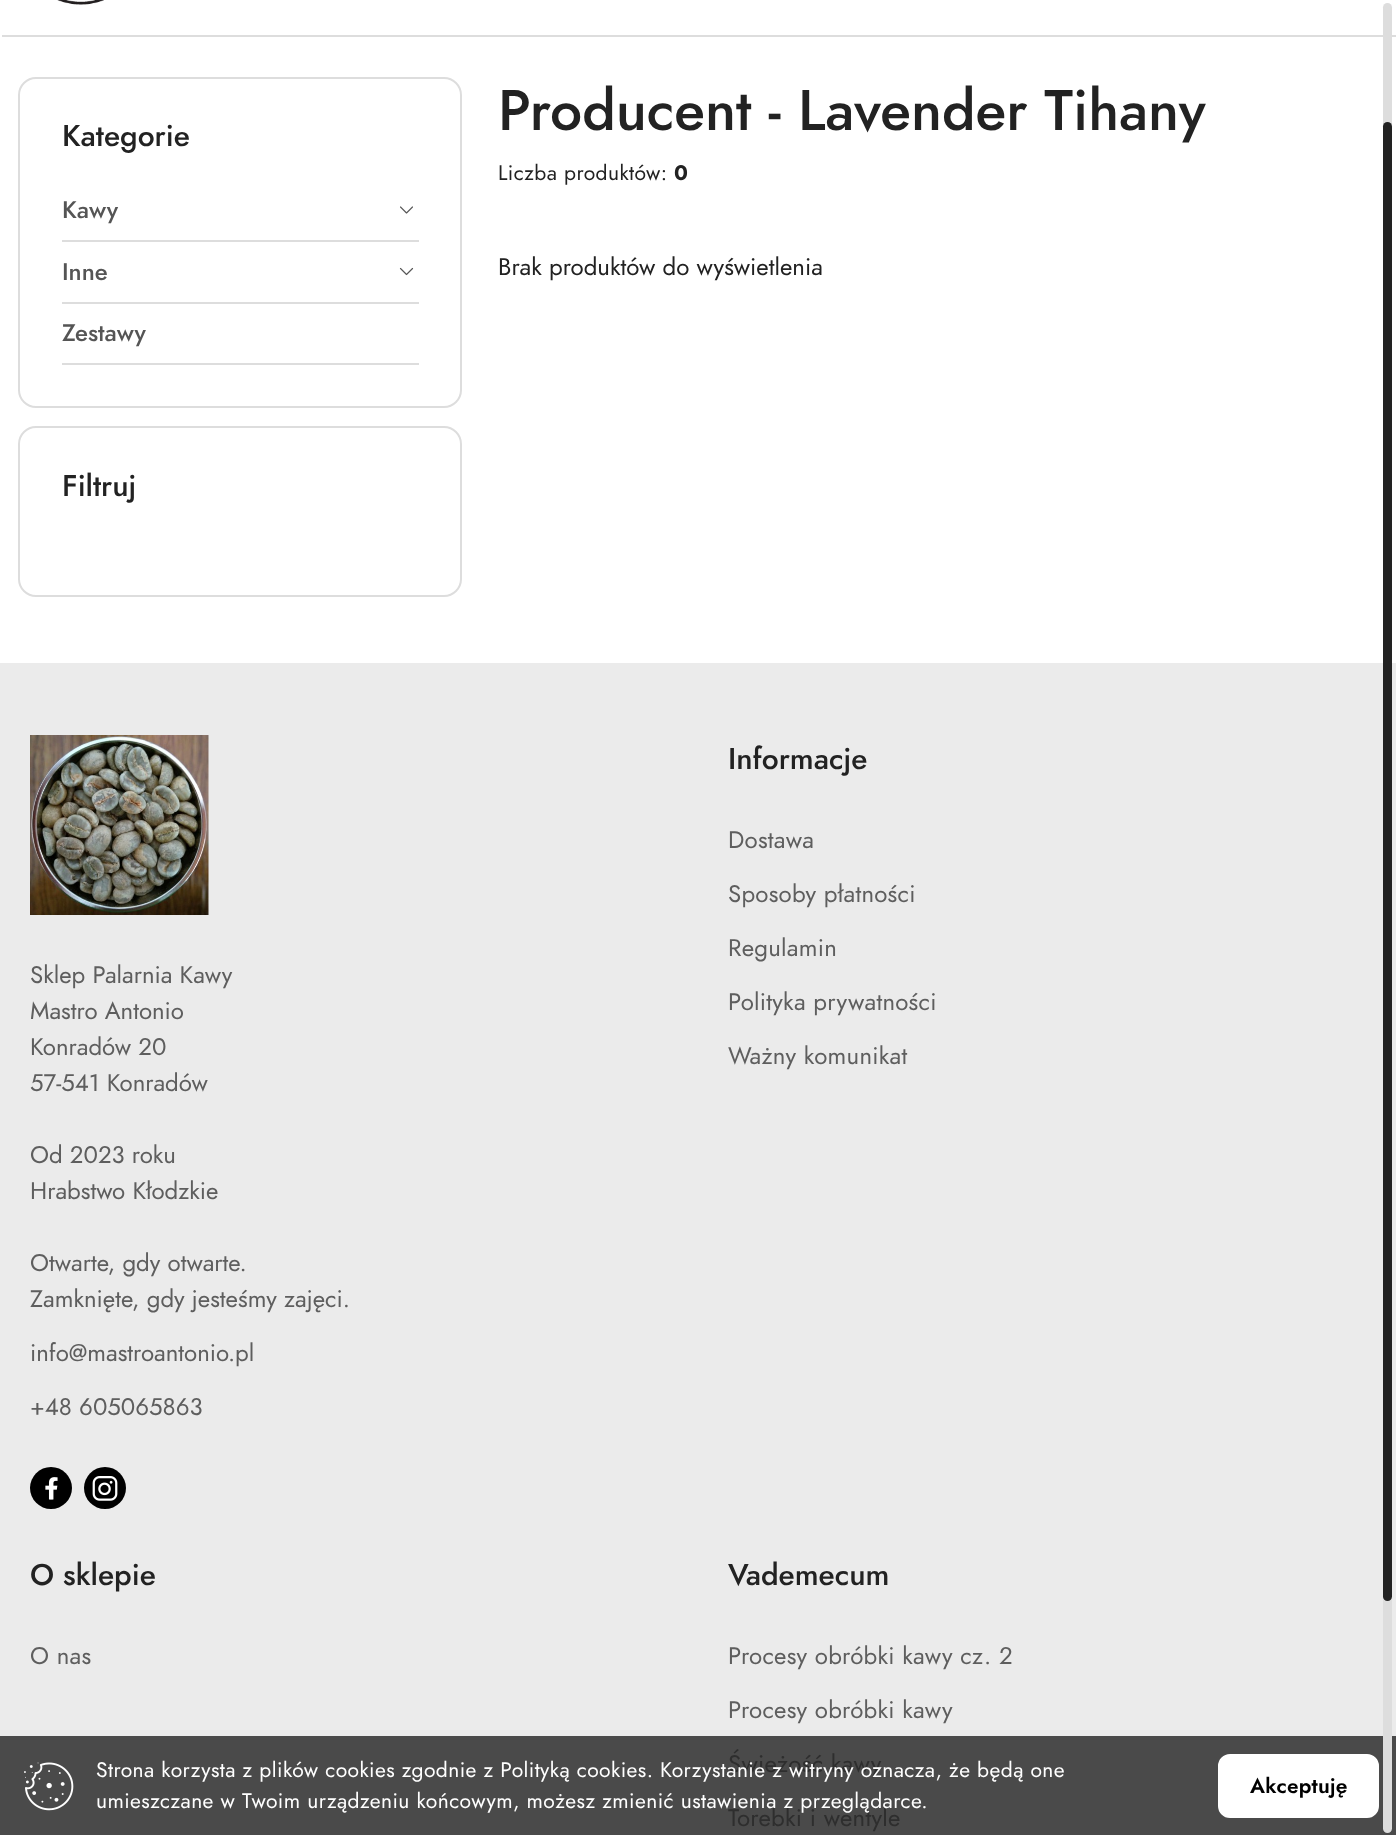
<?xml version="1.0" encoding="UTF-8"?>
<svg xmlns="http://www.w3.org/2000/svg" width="1396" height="1835">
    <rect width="100%" height="100%" fill="#FFFFFF"/>
    <image x="57" y="0" width="47" height="5" href="img_01.png"/>
    <rect x="2" y="35" width="1394" height="2" fill="#DDDDDD"/>
    <rect x="19" y="78" width="442" height="329" rx="17" fill="none" stroke="#DDDDDD" stroke-width="2"/>
    <text x="62" y="146" font-family="Jost" font-size="30" font-weight="500" fill="#222222">Kategorie</text>
    <rect x="62" y="240" width="357" height="2" fill="#DDDDDD"/>
    <text x="62" y="218" font-family="Jost" font-size="24" font-weight="500" fill="#555555">Kawy</text>
    <image x="400" y="206" width="13" height="8" href="img_02.png"/>
    <rect x="62" y="302" width="357" height="2" fill="#DDDDDD"/>
    <text x="62" y="280" font-family="Jost" font-size="24" font-weight="500" fill="#555555">Inne</text>
    <image x="399" y="267" width="15" height="9" href="img_03.png"/>
    <rect x="62" y="363" width="357" height="2" fill="#DDDDDD"/>
    <text x="62" y="341" font-family="Jost" font-size="24" font-weight="500" fill="#555555">Zestawy</text>
    <rect x="19" y="427" width="442" height="169" rx="17" fill="none" stroke="#DDDDDD" stroke-width="2"/>
    <text x="62" y="496" font-family="Jost" font-size="30" font-weight="500" fill="#222222">Filtruj</text>
    <text x="498" y="130" font-family="Jost" font-size="57" font-weight="500" fill="#222222">Producent - Lavender Tihany</text>
    <text x="498" y="180" font-family="Jost" font-size="21" letter-spacing="0.42" fill="#222222">Liczba produktów:</text>
    <text x="674" y="180" font-family="Jost" font-size="21" font-weight="700" letter-spacing="0.42" fill="#222222">0</text>
    <text x="498" y="275" font-family="Jost" font-size="24" fill="#222222">Brak produktów do wyświetlenia</text>
    <rect x="0" y="663" width="1396" height="1073" fill="#EBEBEB"/>
    <rect x="0" y="1736" width="1396" height="99" fill="#4A4A4A"/>
    <text x="728" y="769" font-family="Jost" font-size="30" font-weight="500" fill="#222222">Informacje</text>
    <text x="728" y="848" font-family="Jost" font-size="24" letter-spacing="0.25" fill="#5E5E5E">Dostawa</text>
    <text x="728" y="902" font-family="Jost" font-size="24" letter-spacing="0.25" fill="#5E5E5E">Sposoby płatności</text>
    <text x="728" y="956" font-family="Jost" font-size="24" letter-spacing="0.25" fill="#5E5E5E">Regulamin</text>
    <text x="728" y="1010" font-family="Jost" font-size="24" letter-spacing="0.25" fill="#5E5E5E">Polityka prywatności</text>
    <text x="728" y="1064" font-family="Jost" font-size="24" letter-spacing="0.25" fill="#5E5E5E">Ważny komunikat</text>
    <image x="30" y="735" width="179" height="180" href="img_04.png"/>
    <text font-family="Jost" font-size="24" fill="#5E5E5E">
        <tspan x="30" y="983">Sklep Palarnia Kawy</tspan>
        <tspan x="30" y="1019">Mastro Antonio</tspan>
        <tspan x="30" y="1055">Konradów 20</tspan>
        <tspan x="30" y="1091">57-541 Konradów</tspan>
    </text>
    <text font-family="Jost" font-size="24" fill="#5E5E5E">
        <tspan x="30" y="1163">Od 2023 roku</tspan>
        <tspan x="30" y="1199">Hrabstwo Kłodzkie</tspan>
    </text>
    <text font-family="Jost" font-size="24" fill="#5E5E5E">
        <tspan x="30" y="1271">Otwarte, gdy otwarte.</tspan>
        <tspan x="30" y="1307">Zamknięte, gdy jesteśmy zajęci.</tspan>
    </text>
    <text x="30" y="1361" font-family="Jost" font-size="24" fill="#5E5E5E">info@mastroantonio.pl</text>
    <text x="30" y="1415" font-family="Jost" font-size="24" fill="#5E5E5E">+48 605065863</text>
    <circle cx="51" cy="1488" r="21" fill="#000000"/>
    <image x="45" y="1477" width="13" height="23" href="img_05.png"/>
    <circle cx="105" cy="1488" r="21" fill="#000000"/>
    <image x="92" y="1476" width="26" height="25" href="img_06.png"/>
    <text x="30" y="1585" font-family="Jost" font-size="30" font-weight="500" fill="#222222">O sklepie</text>
    <text x="30" y="1664" font-family="Jost" font-size="24" letter-spacing="0.25" fill="#5E5E5E">O nas</text>
    <text x="728" y="1585" font-family="Jost" font-size="30" font-weight="500" fill="#222222">Vademecum</text>
    <text x="728" y="1664" font-family="Jost" font-size="24" letter-spacing="0.25" fill="#5E5E5E">Procesy obróbki kawy cz. 2</text>
    <text x="728" y="1718" font-family="Jost" font-size="24" letter-spacing="0.25" fill="#5E5E5E">Procesy obróbki kawy</text>
    <text x="728" y="1772" font-family="Jost" font-size="24" letter-spacing="0.25" fill="#2E2E2E">Świeżość kawy</text>
    <text x="728" y="1826" font-family="Jost" font-size="24" letter-spacing="0.25" fill="#2E2E2E">Torebki i wentyle</text>
    <image x="24" y="1762" width="50" height="49" href="img_07.png"/>
    <text font-family="Jost" font-size="21" letter-spacing="0.42" fill="#FFFFFF">
        <tspan x="96" y="1777">Strona korzysta z plików cookies zgodnie z Polityką cookies. Korzystanie z witryny oznacza, że będą one</tspan>
        <tspan x="96" y="1808">umieszczane w Twoim urządzeniu końcowym, możesz zmienić ustawienia z przeglądarce.</tspan>
    </text>
    <rect x="1219" y="1755" width="159" height="62" rx="11" fill="#FFFFFF" stroke="#FFFFFF" stroke-width="2"/>
    <text x="1250" y="1793" font-family="Jost" font-size="21" font-weight="600" letter-spacing="0.25" fill="#000000">Akceptuję</text>
    <rect x="1383" y="3" width="9" height="1830" rx="4.5" fill="#DDDDDD"/>
    <rect x="1383" y="122" width="9" height="1479" rx="4.5" fill="#222222"/>
</svg>
